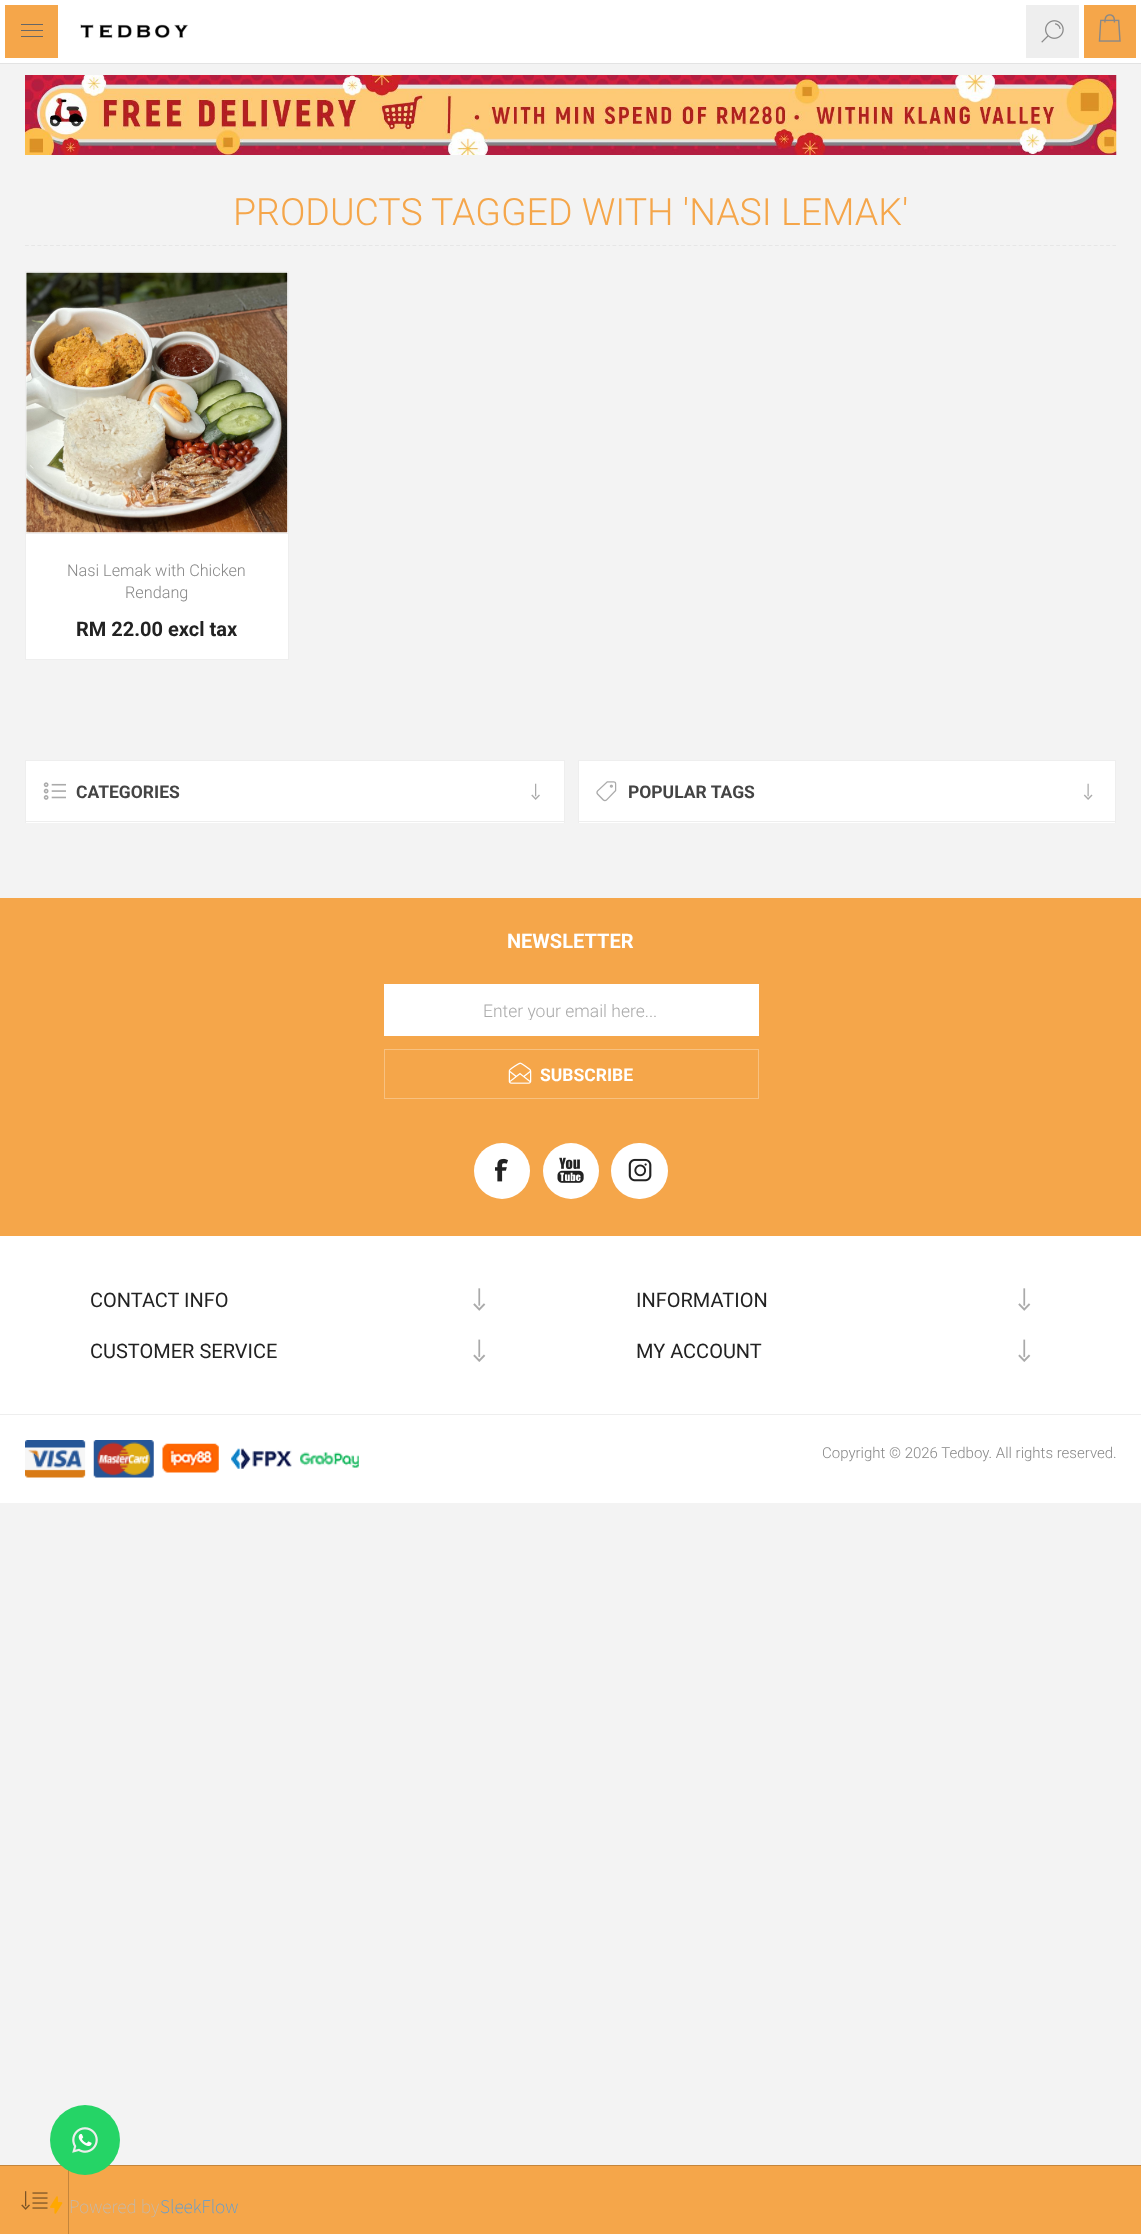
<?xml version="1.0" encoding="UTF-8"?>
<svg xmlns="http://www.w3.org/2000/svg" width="1141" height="2234">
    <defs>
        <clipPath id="clip1"><rect x="403" y="1000" width="337" height="20"/></clipPath>
    </defs>
    <rect width="100%" height="100%" fill="#F3F3F3"/>
    <rect x="0" y="63" width="1141" height="1" fill="#E3E3E3"/>
    <rect x="63" y="0" width="1016" height="63" fill="#FFFFFF"/>
    <image x="80" y="24" width="109" height="15" href="img_01.png"/>
    <rect x="1026" y="5" width="53" height="53" fill="#EEEEEE"/>
    <image x="1041" y="20" width="23" height="23" href="img_02.png"/>
    <rect x="2.5" y="2.5" width="58" height="58" fill="#F5A64A" stroke="#FFFFFF" stroke-width="5"/>
    <rect x="21" y="24" width="22" height="1" fill="#666666"/>
    <rect x="21" y="30" width="22" height="1" fill="#666666"/>
    <rect x="21" y="36" width="22" height="1" fill="#666666"/>
    <rect x="1081.5" y="2.5" width="57" height="58" fill="#F5A64A" stroke="#FFFFFF" stroke-width="5"/>
    <image x="1098" y="14" width="23" height="28" href="img_03.png"/>
    <image x="25" y="75" width="1092" height="80" href="img_04.png"/>
    <path d="M 25 245.5 H 1116" fill="none" stroke="#E6E6E6" stroke-width="1.2" stroke-dasharray="3.75 2.5"/>
    <text x="233" y="225" font-family="Roboto" font-size="37.5" font-weight="300" fill="#F5A64A">PRODUCTS TAGGED WITH 'NASI LEMAK'</text>
    <rect x="25.5" y="271.5" width="263" height="388" fill="#FFFFFF" stroke="#EEEEEE"/>
    <rect x="26" y="533" width="262" height="1" fill="#EEEEEE"/>
    <image x="26" y="272" width="262" height="261" href="img_05.png"/>
    <text x="67" y="576" font-family="Roboto" font-size="16.25" font-weight="300" fill="#888888">Nasi Lemak with Chicken</text>
    <text x="125" y="598" font-family="Roboto" font-size="16.25" font-weight="300" fill="#888888">Rendang</text>
    <text x="76" y="636" font-family="Roboto" font-size="20" font-weight="700" fill="#222222">RM 22.00 excl tax</text>
    <rect x="0" y="2166" width="1141" height="68" fill="#F5A64A"/>
    <rect x="0" y="2165" width="1141" height="1" fill="#C4853B"/>
    <image x="21" y="2191" width="27" height="19" href="img_06.png"/>
    <rect x="68" y="2166" width="1" height="68" fill="#C4853B"/>
    <rect x="26" y="761" width="538" height="62" fill="#FFFFFF"/>
    <rect x="25" y="760" width="540" height="1" fill="#EEEEEE"/>
    <rect x="564" y="760" width="1" height="63" fill="#EEEEEE"/>
    <rect x="25" y="760" width="1" height="63" fill="#EEEEEE"/>
    <rect x="26" y="821" width="538" height="1" fill="#EEEEEE"/>
    <image x="43" y="782" width="23" height="18" href="img_07.png"/>
    <text x="76" y="798" font-family="Roboto" font-size="17.5" font-weight="700" fill="#444444">CATEGORIES</text>
    <image x="531" y="783" width="9" height="17" href="img_08.png"/>
    <rect x="579" y="761" width="536" height="62" fill="#FFFFFF"/>
    <rect x="578" y="760" width="538" height="1" fill="#EEEEEE"/>
    <rect x="1115" y="760" width="1" height="63" fill="#EEEEEE"/>
    <rect x="578" y="760" width="1" height="63" fill="#EEEEEE"/>
    <rect x="579" y="821" width="536" height="1" fill="#EEEEEE"/>
    <image x="596" y="781" width="21" height="21" href="img_09.png"/>
    <text x="628" y="798" font-family="Roboto" font-size="17.5" font-weight="700" fill="#444444">POPULAR TAGS</text>
    <image x="1083" y="783" width="10" height="17" href="img_10.png"/>
    <rect x="0" y="1236" width="1141" height="178" fill="#FFFFFF"/>
    <rect x="0" y="898" width="1141" height="338" fill="#F5A64A"/>
    <text x="507" y="948" font-family="Roboto" font-size="20" font-weight="700" fill="#FFFFFF">NEWSLETTER</text>
    <rect x="384" y="984" width="375" height="52" fill="#FFFFFF"/>
    <g clip-path="url(#clip1)">
        <text x="483" y="1017" font-family="Roboto" font-size="17.5" font-weight="300" fill="#AAAAAA">Enter your email here...</text>
    </g>
    <image x="508" y="1062" width="24" height="22" href="img_11.png"/>
    <rect x="384.5" y="1049.5" width="374" height="49" fill="none" stroke="#F8C180"/>
    <text x="540" y="1081" font-family="Roboto" font-size="17.5" font-weight="700" fill="#FFFFFF">SUBSCRIBE</text>
    <circle cx="502" cy="1171" r="28" fill="#FFFFFF"/>
    <image x="495" y="1158" width="13" height="24" href="img_12.png"/>
    <circle cx="571" cy="1171" r="28" fill="#FFFFFF"/>
    <image x="557" y="1157" width="27" height="26" href="img_13.png"/>
    <rect x="611" y="1143" width="57" height="56" rx="28" fill="#FFFFFF"/>
    <image x="628" y="1158" width="24" height="24" href="img_14.png"/>
    <text x="90" y="1307" font-family="Roboto" font-size="20" fill="#222222">CONTACT INFO</text>
    <image x="473" y="1288" width="13" height="23" href="img_15.png"/>
    <text x="636" y="1307" font-family="Roboto" font-size="20" fill="#222222">INFORMATION</text>
    <image x="1018" y="1288" width="13" height="23" href="img_15.png"/>
    <text x="90" y="1358" font-family="Roboto" font-size="20" fill="#222222">CUSTOMER SERVICE</text>
    <image x="473" y="1339" width="13" height="23" href="img_16.png"/>
    <text x="636" y="1358" font-family="Roboto" font-size="20" fill="#222222">MY ACCOUNT</text>
    <image x="1018" y="1339" width="13" height="23" href="img_16.png"/>
    <rect x="0" y="1415" width="1141" height="88" fill="#FFFFFF"/>
    <rect x="0" y="1414" width="1141" height="1" fill="#EEEEEE"/>
    <image x="25" y="1440" width="61" height="38" href="img_17.png"/>
    <image x="93" y="1440" width="61" height="38" href="img_18.png"/>
    <image x="162" y="1443" width="57" height="30" href="img_19.png"/>
    <image x="231" y="1448" width="61" height="21" href="img_20.png"/>
    <image x="300" y="1452" width="59" height="16" href="img_21.png"/>
    <text x="822" y="1458" font-family="Roboto" font-size="15" font-weight="300" fill="#888888">Copyright © 2026 Tedboy. All rights reserved.</text>
    <text x="69" y="2213" font-family="Noto Sans TC" font-size="17.5" font-weight="100" fill="#BBBBBB">Powered by</text>
    <circle cx="85" cy="2140" r="35" fill="#25D466"/>
    <image x="72" y="2127" width="26" height="26" href="img_22.png"/>
    <image x="50" y="2196" width="13" height="18" href="img_23.png"/>
    <text x="160" y="2213" font-family="Noto Sans TC" font-size="17.5" font-weight="100" fill="#4A9CE8">SleekFlow</text>
</svg>
